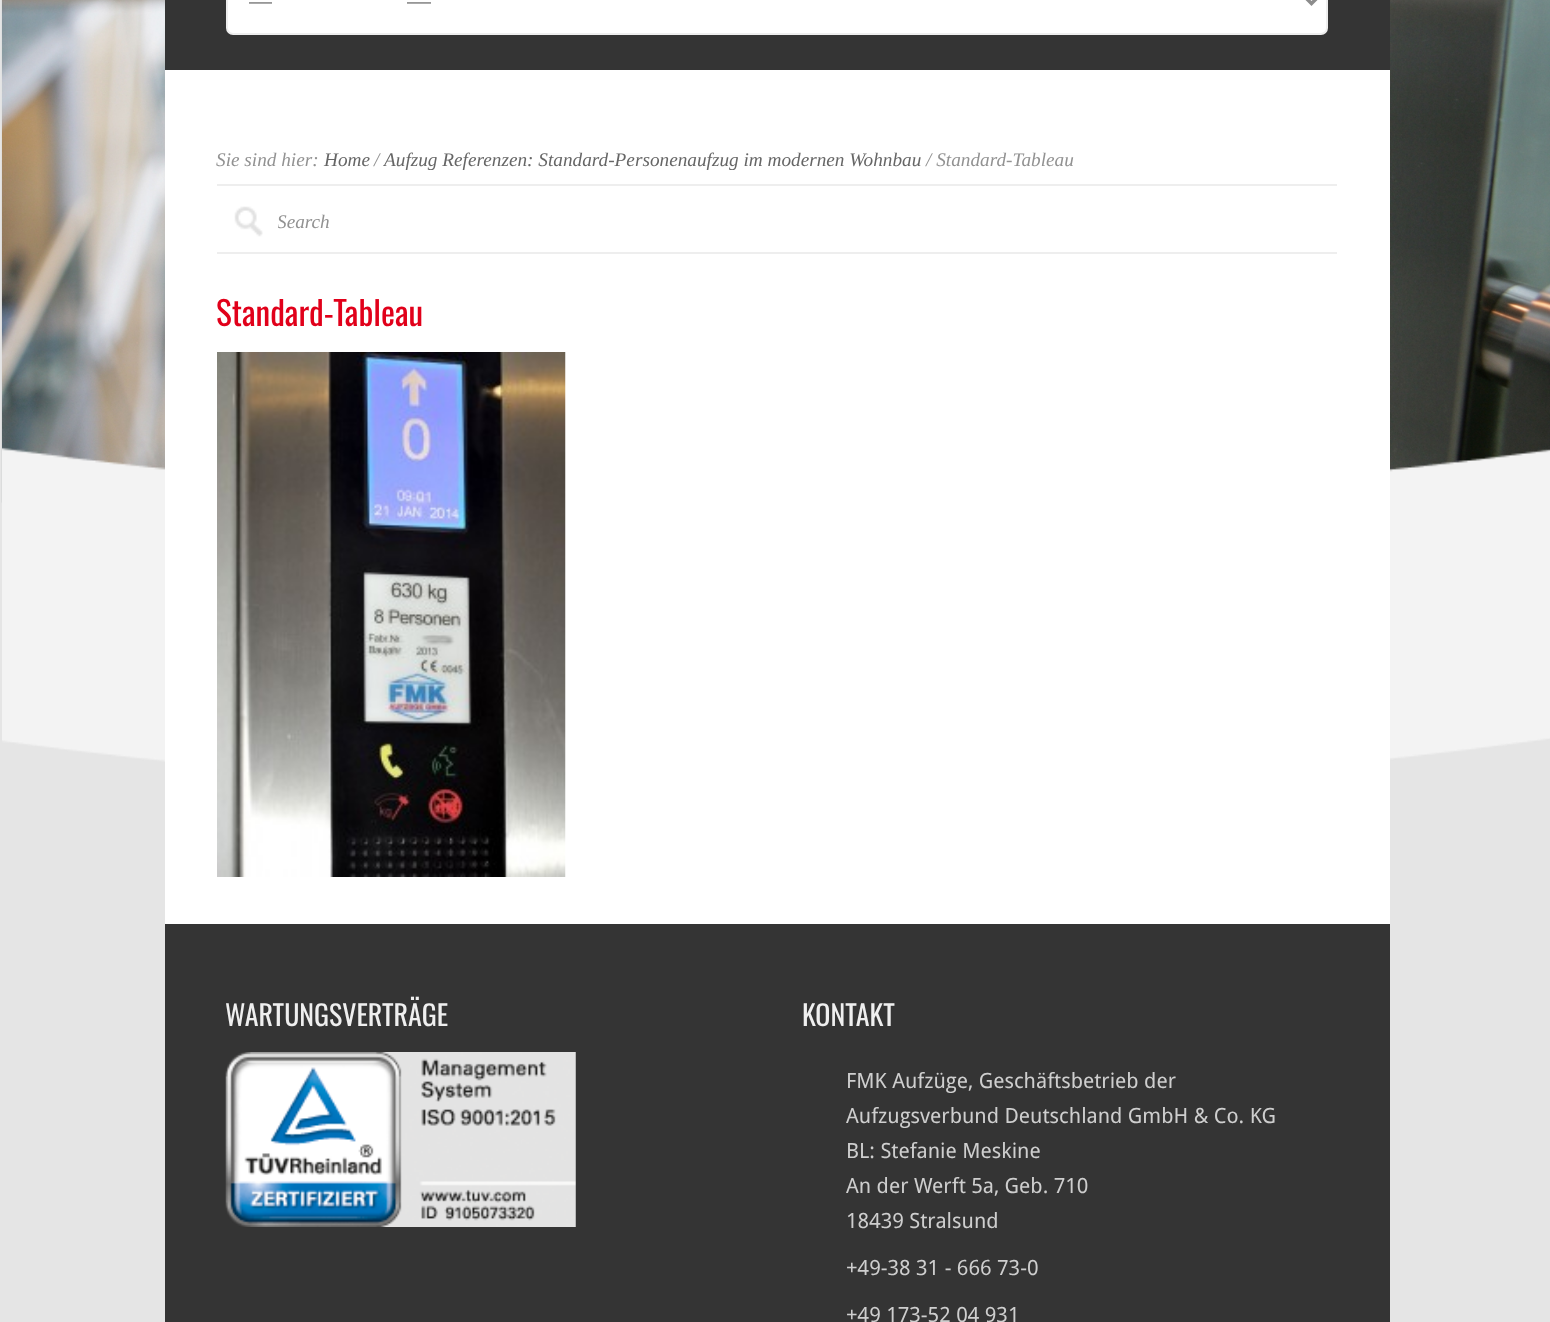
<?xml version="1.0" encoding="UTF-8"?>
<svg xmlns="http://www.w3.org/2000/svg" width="1550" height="1322">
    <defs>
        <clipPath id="clip1"><rect x="249" y="0" width="1036" height="16"/></clipPath>
        <clipPath id="clip2"><rect x="278" y="212" width="140" height="21"/></clipPath>
    </defs>
    <rect width="100%" height="100%" fill="#E5E5E5"/>
    <image x="1" y="0" width="1549" height="503" href="img_01.png"/>
    <image x="2" y="447" width="1548" height="315" href="img_02.png"/>
    <rect x="165" y="0" width="1225" height="70" fill="#343434"/>
    <rect x="227" y="-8" width="1100" height="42" rx="6" fill="#FFFFFF" stroke="#EEEEEE" stroke-width="2"/>
    <path d="M 1304.5 -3.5 L 1311.5 3.5 L 1318.5 -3.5" fill="none" stroke="#8C8C8C" stroke-width="3.5"/>
    <g clip-path="url(#clip1)">
        <text x="248" y="9" font-family="Liberation Sans" font-size="24" fill="#8C8C8C">—</text>
    </g>
    <text x="407" y="9" font-family="Liberation Sans" font-size="24" fill="#8C8C8C">—</text>
    <rect x="165" y="70" width="1225" height="854" fill="#FFFFFF"/>
    <rect x="217" y="184" width="1120" height="2" fill="#EEEEEE"/>
    <text x="216" y="166" font-family="Liberation Serif" font-size="19.25" font-style="italic" fill="#929292">Sie sind hier:</text>
    <text x="324" y="166" font-family="Liberation Serif" font-size="19.25" font-style="italic" fill="#666666">Home</text>
    <text x="374" y="166" font-family="Liberation Serif" font-size="19.25" font-style="italic" fill="#929292">/</text>
    <text x="384" y="166" font-family="Liberation Serif" font-size="19.25" font-style="italic" fill="#666666">Aufzug Referenzen: Standard-Personenaufzug im modernen Wohnbau</text>
    <text x="926" y="166" font-family="Liberation Serif" font-size="19.25" font-style="italic" fill="#929292">/ Standard-Tableau</text>
    <image x="234" y="206" width="29" height="31" href="img_03.png"/>
    <rect x="217" y="252" width="1120" height="2" fill="#EEEEEE"/>
    <g clip-path="url(#clip2)">
        <text x="277" y="228" font-family="Liberation Serif" font-size="19.25" font-style="italic" fill="#929292">Search</text>
    </g>
    <text x="216" y="326" font-family="Oswald" font-size="33.25" fill="#E1001A">Standard-Tableau</text>
    <image x="217" y="352" width="349" height="525" href="img_04.png"/>
    <rect x="165" y="924" width="1225" height="398" fill="#343434"/>
    <text x="225" y="1026" font-family="Oswald" font-size="28" fill="#EFEFEF">WARTUNGSVERTRÄGE</text>
    <image x="225" y="1052" width="351" height="175" href="img_05.png"/>
    <text x="802" y="1026" font-family="Oswald" font-size="28" fill="#EFEFEF">KONTAKT</text>
    <text font-family="Droid Sans" font-size="21" fill="#CECECE">
        <tspan x="846" y="1088">FMK Aufzüge, Geschäftsbetrieb der</tspan>
        <tspan x="846" y="1123">Aufzugsverbund Deutschland GmbH &amp; Co. KG</tspan>
        <tspan x="846" y="1158">BL: Stefanie Meskine</tspan>
        <tspan x="846" y="1193">An der Werft 5a, Geb. 710</tspan>
        <tspan x="846" y="1228">18439 Stralsund</tspan>
    </text>
    <text x="846" y="1275" font-family="Droid Sans" font-size="21" fill="#CECECE">+49-38 31 - 666 73-0</text>
    <text x="846" y="1322" font-family="Droid Sans" font-size="21" fill="#CECECE">+49 173-52 04 931</text>
</svg>
